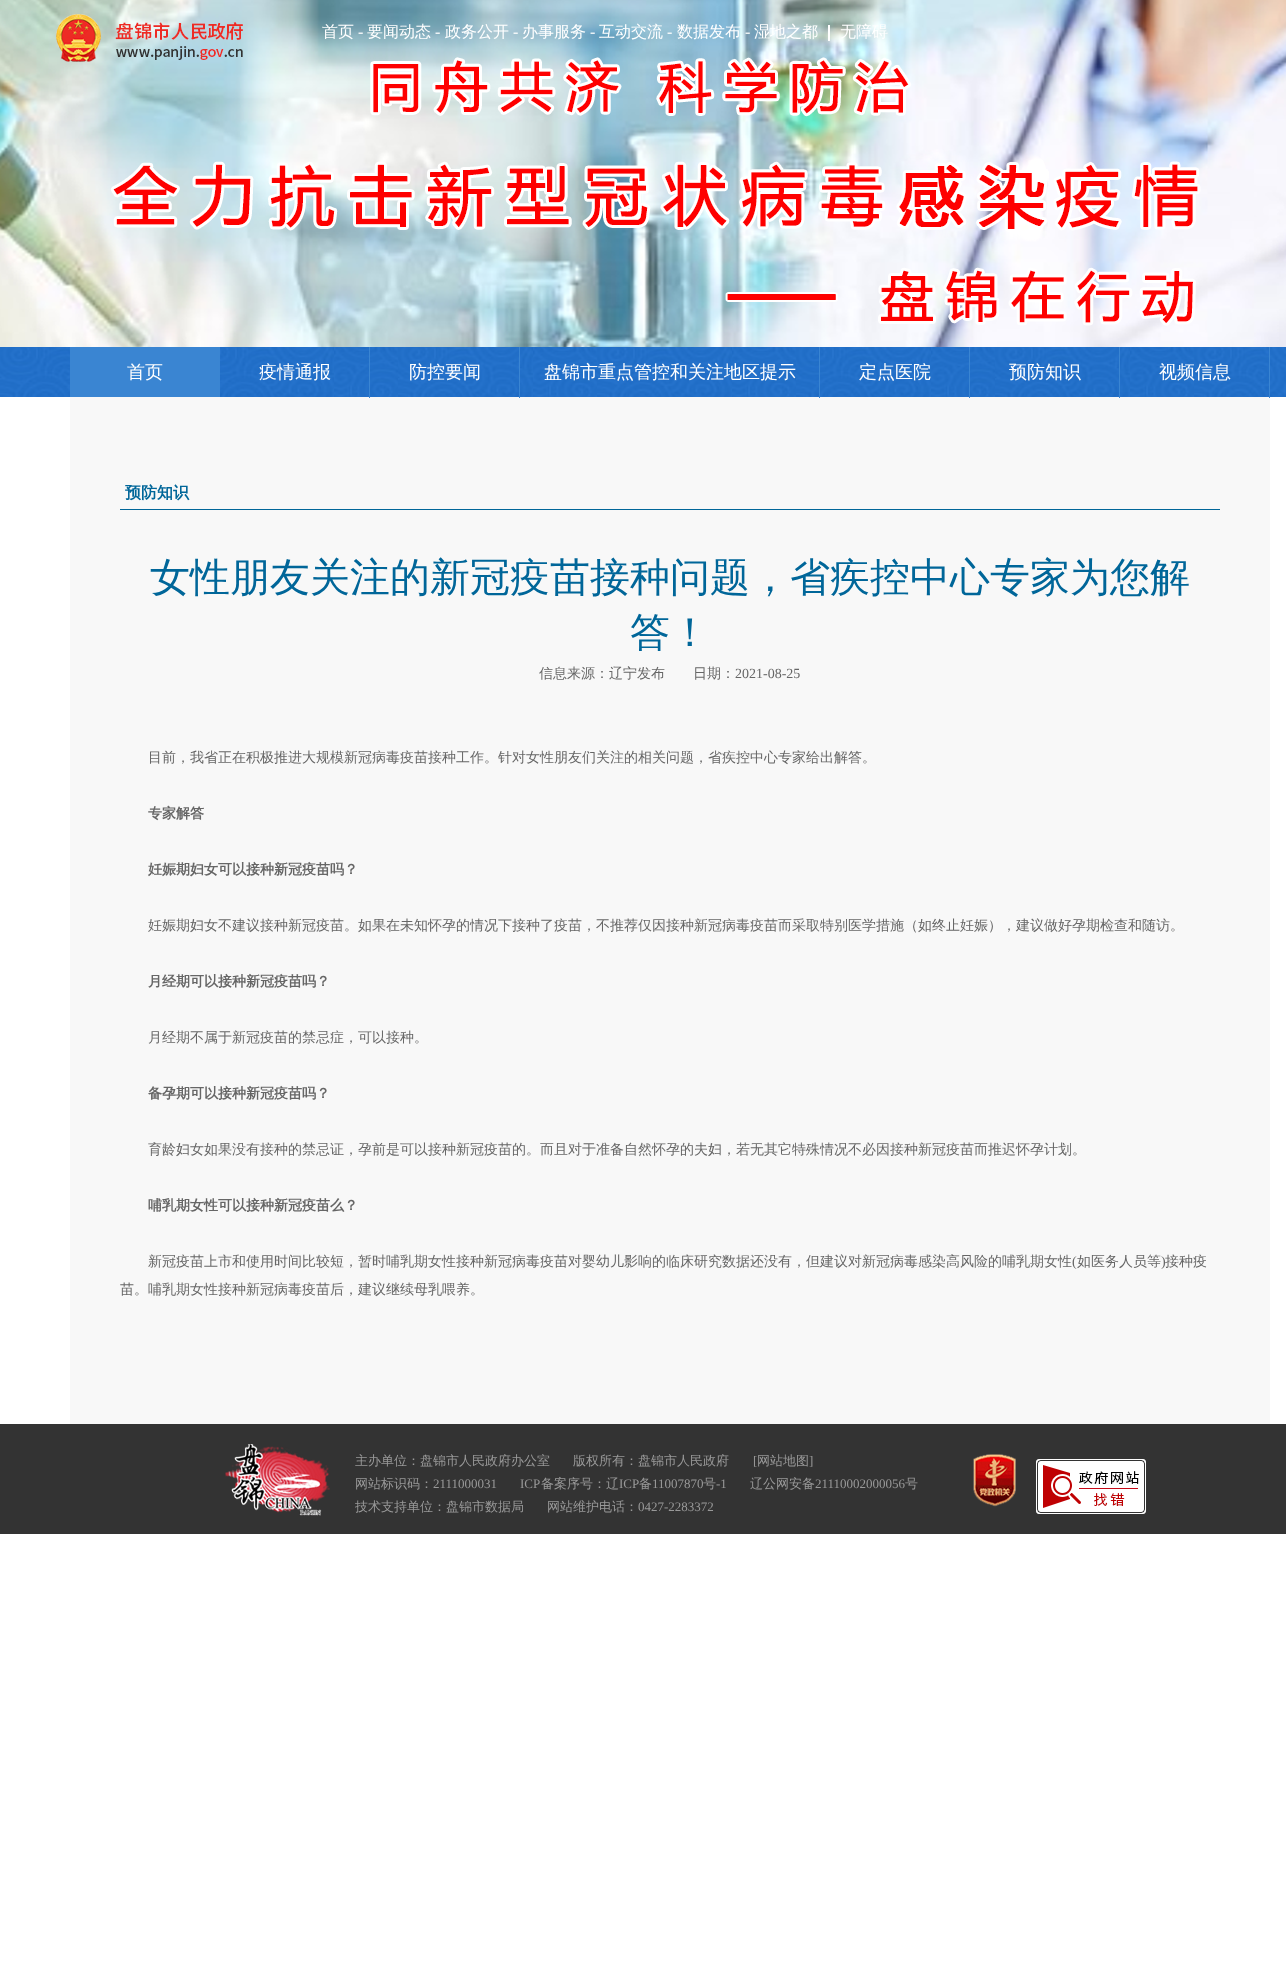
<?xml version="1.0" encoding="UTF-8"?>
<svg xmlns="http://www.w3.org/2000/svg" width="1286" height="1983">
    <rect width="100%" height="100%" fill="#FFFFFF"/>
    <image x="0" y="0" width="1286" height="347" href="img_01.png"/>
    <text x="322" y="37" font-family="WenQuanYi Zen Hei" font-size="16" font-weight="500" fill="#FFFFFF">首页</text>
    <text x="358" y="37" font-family="Liberation Serif" font-size="16" fill="#FFFFFF">-</text>
    <text x="367" y="37" font-family="WenQuanYi Zen Hei" font-size="16" font-weight="500" fill="#FFFFFF">要闻动态</text>
    <text x="435" y="37" font-family="Liberation Serif" font-size="16" fill="#FFFFFF">-</text>
    <text x="445" y="37" font-family="WenQuanYi Zen Hei" font-size="16" font-weight="500" fill="#FFFFFF">政务公开</text>
    <text x="513" y="37" font-family="Liberation Serif" font-size="16" fill="#FFFFFF">-</text>
    <text x="522" y="37" font-family="WenQuanYi Zen Hei" font-size="16" font-weight="500" fill="#FFFFFF">办事服务</text>
    <text x="590" y="37" font-family="Liberation Serif" font-size="16" fill="#FFFFFF">-</text>
    <text x="599" y="37" font-family="WenQuanYi Zen Hei" font-size="16" font-weight="500" fill="#FFFFFF">互动交流</text>
    <text x="667" y="37" font-family="Liberation Serif" font-size="16" fill="#FFFFFF">-</text>
    <text x="677" y="37" font-family="WenQuanYi Zen Hei" font-size="16" font-weight="500" fill="#FFFFFF">数据发布</text>
    <text x="745" y="37" font-family="Liberation Serif" font-size="16" fill="#FFFFFF">-</text>
    <text x="754" y="37" font-family="WenQuanYi Zen Hei" font-size="16" font-weight="500" fill="#FFFFFF">湿地之都</text>
    <rect x="828" y="25" width="2" height="16" fill="#FFFFFF"/>
    <text x="840" y="37" font-family="WenQuanYi Zen Hei" font-size="16" font-weight="500" fill="#FFFFFF">无障碍</text>
    <image x="0" y="347" width="1286" height="50" href="img_02.png"/>
    <rect x="219" y="347" width="1" height="50" fill="#3A85D2"/>
    <rect x="70" y="347" width="149" height="50" fill="#3A85D2"/>
    <text x="127" y="378" font-family="WenQuanYi Zen Hei" font-size="18" font-weight="500" fill="#FFFFFF">首页</text>
    <rect x="70" y="397" width="1200" height="1027" fill="#F8F8F8"/>
    <rect x="369" y="347" width="1" height="51" fill="#3A85D2"/>
    <text x="259" y="378" font-family="WenQuanYi Zen Hei" font-size="18" font-weight="500" fill="#FFFFFF">疫情通报</text>
    <rect x="519" y="347" width="1" height="51" fill="#3A85D2"/>
    <text x="409" y="378" font-family="WenQuanYi Zen Hei" font-size="18" font-weight="500" fill="#FFFFFF">防控要闻</text>
    <rect x="819" y="347" width="1" height="51" fill="#3A85D2"/>
    <text x="544" y="378" font-family="WenQuanYi Zen Hei" font-size="18" font-weight="500" fill="#FFFFFF">盘锦市重点管控和关注地区提示</text>
    <rect x="969" y="347" width="1" height="51" fill="#3A85D2"/>
    <text x="859" y="378" font-family="WenQuanYi Zen Hei" font-size="18" font-weight="500" fill="#FFFFFF">定点医院</text>
    <rect x="1119" y="347" width="1" height="51" fill="#3A85D2"/>
    <text x="1009" y="378" font-family="WenQuanYi Zen Hei" font-size="18" font-weight="500" fill="#FFFFFF">预防知识</text>
    <rect x="1269" y="347" width="1" height="51" fill="#3A85D2"/>
    <text x="1159" y="378" font-family="WenQuanYi Zen Hei" font-size="18" font-weight="500" fill="#FFFFFF">视频信息</text>
    <rect x="120" y="509" width="1100" height="1" fill="#006699"/>
    <text x="125" y="498" font-family="WenQuanYi Zen Hei" font-size="16" font-weight="700" fill="#006699">预防知识</text>
    <text x="150" y="591" font-family="WenQuanYi Zen Hei" font-size="40" font-weight="500" fill="#006699">女性朋友关注的新冠疫苗接种问题，省疾控中心专家为您解</text>
    <text x="630" y="646" font-family="WenQuanYi Zen Hei" font-size="40" font-weight="500" fill="#006699">答！</text>
    <text x="539" y="678" font-family="WenQuanYi Zen Hei" font-size="14" font-weight="500" fill="#666666">信息来源：辽宁发布</text>
    <text x="693" y="678" font-family="WenQuanYi Zen Hei" font-size="14" font-weight="500" fill="#666666">日期：</text>
    <text x="735" y="678" font-family="Liberation Serif" font-size="14" fill="#666666">2021-08-25</text>
    <text x="148" y="762" font-family="WenQuanYi Zen Hei" font-size="14" font-weight="500" fill="#666666">目前，我省正在积极推进大规模新冠病毒疫苗接种工作。针对女性朋友们关注的相关问题，省疾控中心专家给出解答。</text>
    <text x="148" y="818" font-family="WenQuanYi Zen Hei" font-size="14" font-weight="700" fill="#666666">专家解答</text>
    <text x="148" y="874" font-family="WenQuanYi Zen Hei" font-size="14" font-weight="700" fill="#666666">妊娠期妇女可以接种新冠疫苗吗？</text>
    <text x="148" y="930" font-family="WenQuanYi Zen Hei" font-size="14" font-weight="500" fill="#666666">妊娠期妇女不建议接种新冠疫苗。如果在未知怀孕的情况下接种了疫苗，不推荐仅因接种新冠病毒疫苗而采取特别医学措施（如终止妊娠），建议做好孕期检查和随访。</text>
    <text x="148" y="986" font-family="WenQuanYi Zen Hei" font-size="14" font-weight="700" fill="#666666">月经期可以接种新冠疫苗吗？</text>
    <text x="148" y="1042" font-family="WenQuanYi Zen Hei" font-size="14" font-weight="500" fill="#666666">月经期不属于新冠疫苗的禁忌症，可以接种。</text>
    <text x="148" y="1098" font-family="WenQuanYi Zen Hei" font-size="14" font-weight="700" fill="#666666">备孕期可以接种新冠疫苗吗？</text>
    <text x="148" y="1154" font-family="WenQuanYi Zen Hei" font-size="14" font-weight="500" fill="#666666">育龄妇女如果没有接种的禁忌证，孕前是可以接种新冠疫苗的。而且对于准备自然怀孕的夫妇，若无其它特殊情况不必因接种新冠疫苗而推迟怀孕计划。</text>
    <text x="148" y="1210" font-family="WenQuanYi Zen Hei" font-size="14" font-weight="700" fill="#666666">哺乳期女性可以接种新冠疫苗么？</text>
    <text x="148" y="1266" font-family="WenQuanYi Zen Hei" font-size="14" font-weight="500" fill="#666666">新冠疫苗上市和使用时间比较短，暂时哺乳期女性接种新冠病毒疫苗对婴幼儿影响的临床研究数据还没有，但建议对新冠病毒感染高风险的哺乳期女性</text>
    <text x="1072" y="1266" font-family="Liberation Serif" font-size="14" fill="#666666">(</text>
    <text x="1077" y="1266" font-family="WenQuanYi Zen Hei" font-size="14" font-weight="500" fill="#666666">如医务人员等</text>
    <text x="1161" y="1266" font-family="Liberation Serif" font-size="14" fill="#666666">)</text>
    <text x="1165" y="1266" font-family="WenQuanYi Zen Hei" font-size="14" font-weight="500" fill="#666666">接种疫</text>
    <text x="120" y="1294" font-family="WenQuanYi Zen Hei" font-size="14" font-weight="500" fill="#666666">苗。哺乳期女性接种新冠病毒疫苗后，建议继续母乳喂养。</text>
    <rect x="0" y="1424" width="1286" height="110" fill="#333333"/>
    <image x="225" y="1444" width="105" height="72" href="img_03.png"/>
    <text x="355" y="1465" font-family="WenQuanYi Zen Hei" font-size="13" font-weight="500" fill="#999999">主办单位：盘锦市人民政府办公室</text>
    <text x="573" y="1465" font-family="WenQuanYi Zen Hei" font-size="13" font-weight="500" fill="#999999">版权所有：盘锦市人民政府</text>
    <text x="753" y="1465" font-family="Liberation Serif" font-size="13" fill="#999999">[</text>
    <text x="757" y="1465" font-family="WenQuanYi Zen Hei" font-size="13" font-weight="500" fill="#999999">网站地图</text>
    <text x="809" y="1465" font-family="Liberation Serif" font-size="13" fill="#999999">]</text>
    <text x="355" y="1488" font-family="WenQuanYi Zen Hei" font-size="13" font-weight="500" fill="#999999">网站标识码：</text>
    <text x="433" y="1488" font-family="Liberation Serif" font-size="13" fill="#999999">2111000031</text>
    <text x="520" y="1488" font-family="Liberation Serif" font-size="13" fill="#999999">ICP</text>
    <text x="541" y="1488" font-family="WenQuanYi Zen Hei" font-size="13" font-weight="500" fill="#999999">备案序号：辽</text>
    <text x="619" y="1488" font-family="Liberation Serif" font-size="13" fill="#999999">ICP</text>
    <text x="639" y="1488" font-family="WenQuanYi Zen Hei" font-size="13" font-weight="500" fill="#999999">备</text>
    <text x="652" y="1488" font-family="Liberation Serif" font-size="13" fill="#999999">11007870</text>
    <text x="703" y="1488" font-family="WenQuanYi Zen Hei" font-size="13" font-weight="500" fill="#999999">号</text>
    <text x="716" y="1488" font-family="Liberation Serif" font-size="13" fill="#999999">-1</text>
    <text x="750" y="1488" font-family="WenQuanYi Zen Hei" font-size="13" font-weight="500" fill="#999999">辽公网安备</text>
    <text x="815" y="1488" font-family="Liberation Serif" font-size="13" fill="#999999">21110002000056</text>
    <text x="905" y="1488" font-family="WenQuanYi Zen Hei" font-size="13" font-weight="500" fill="#999999">号</text>
    <text x="355" y="1511" font-family="WenQuanYi Zen Hei" font-size="13" font-weight="500" fill="#999999">技术支持单位：盘锦市数据局</text>
    <text x="547" y="1511" font-family="WenQuanYi Zen Hei" font-size="13" font-weight="500" fill="#999999">网站维护电话：</text>
    <text x="638" y="1511" font-family="Liberation Serif" font-size="13" fill="#999999">0427-2283372</text>
    <image x="973" y="1454" width="43" height="53" href="img_04.png"/>
    <image x="1036" y="1459" width="110" height="55" href="img_05.png"/>
</svg>
